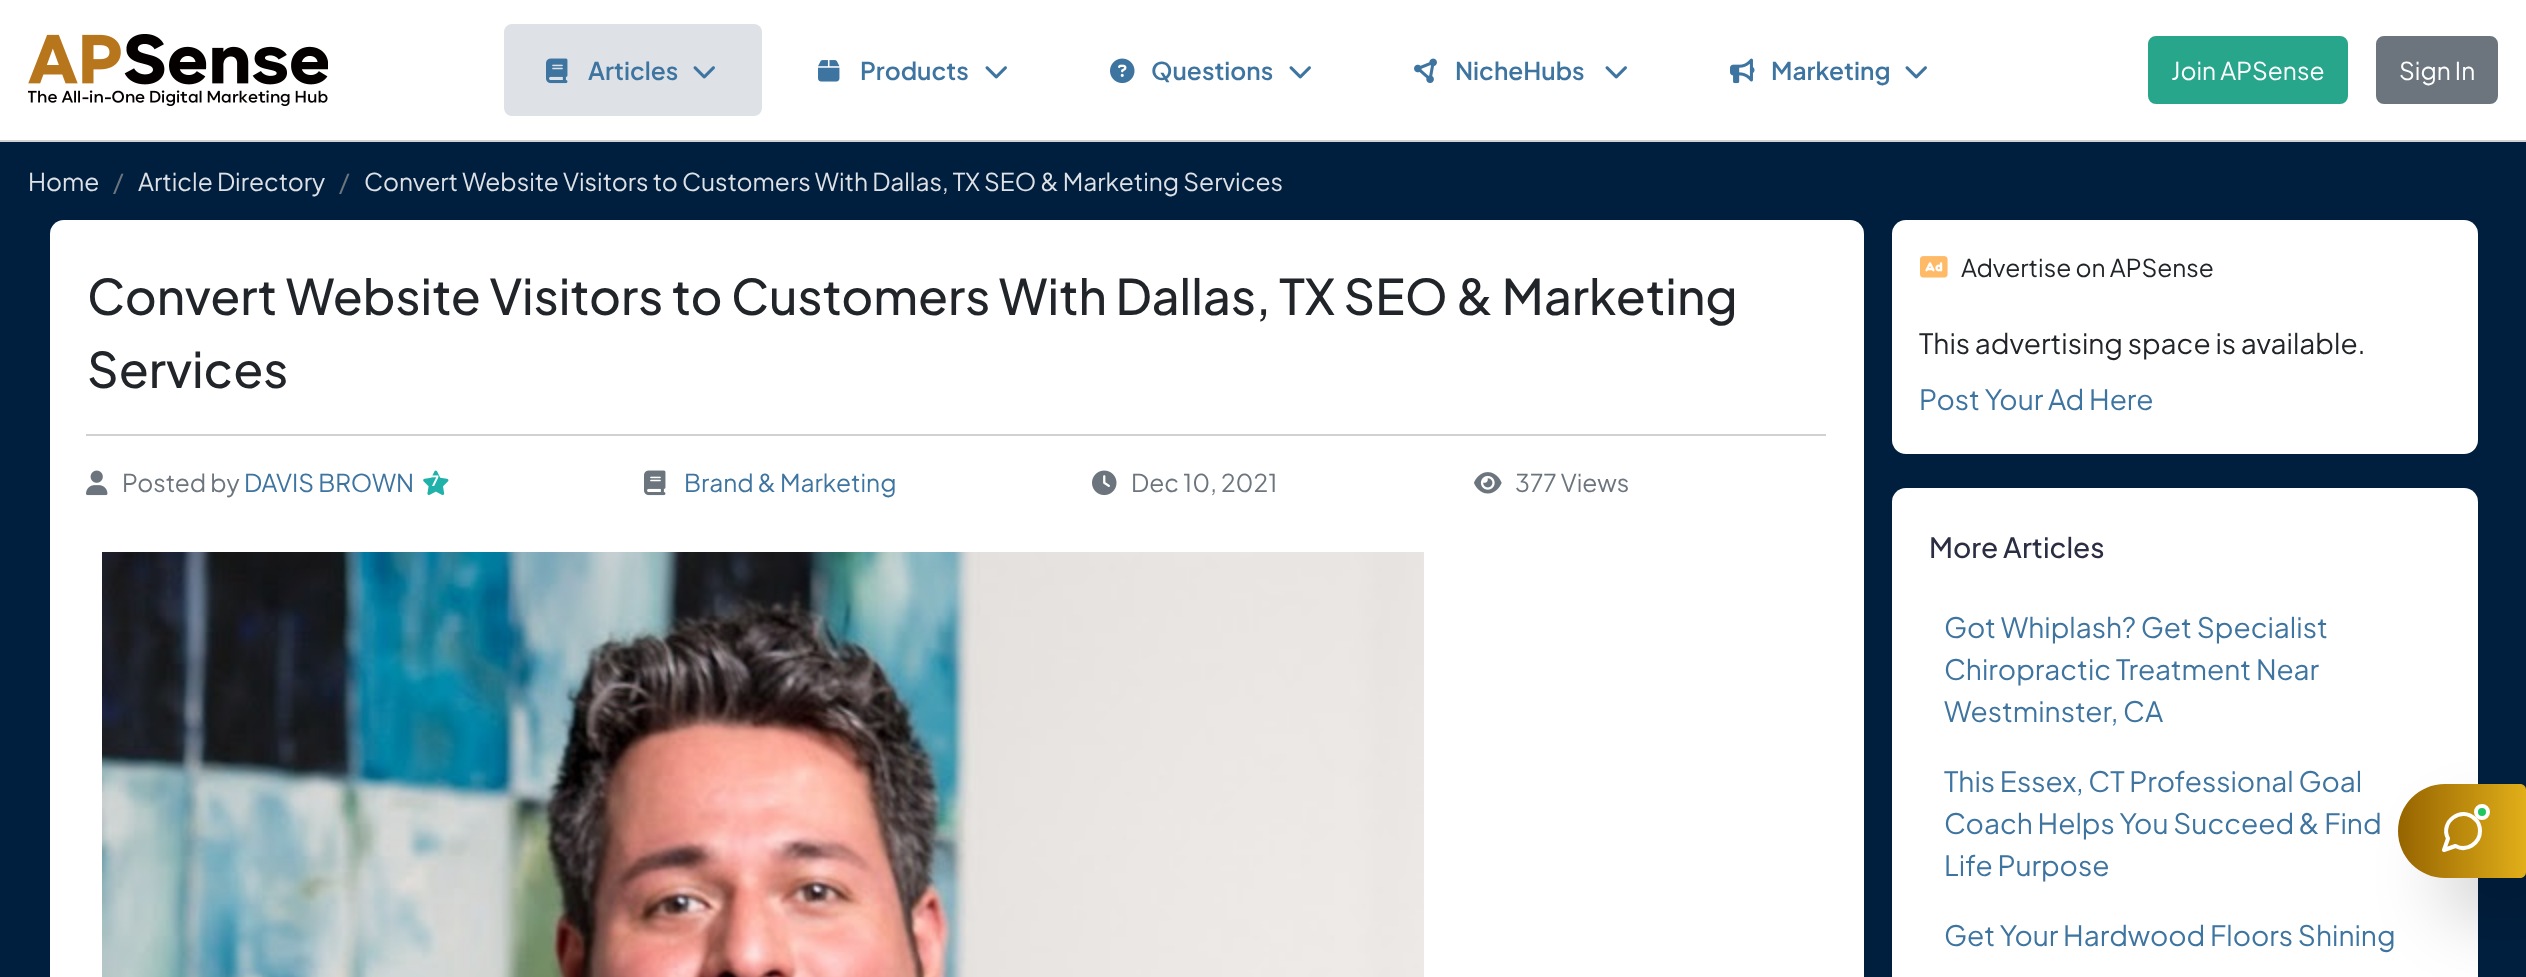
<?xml version="1.0" encoding="UTF-8"?>
<svg xmlns="http://www.w3.org/2000/svg" width="2526" height="977">
    <defs>
        <filter id="blur1" x="-50%" y="-200%" width="200%" height="500%"><feGaussianBlur stdDeviation="35"/></filter>
        <linearGradient id="g1" gradientUnits="userSpaceOnUse" x1="2526" y1="831" x2="2398" y2="831"><stop offset="0" stop-color="#E1AF19"/><stop offset="1" stop-color="#966400"/></linearGradient>
    </defs>
    <rect width="100%" height="100%" fill="#001F3F"/>
    <rect x="0" y="0" width="2526" height="140" fill="#FFFFFF"/>
    <rect x="0" y="140" width="2526" height="2" fill="#D1D1D1"/>
    <image x="28" y="34" width="300" height="72" href="img_01.png"/>
    <rect x="504" y="24" width="258" height="92" rx="8" fill="#DEE2E6"/>
    <image x="546" y="58" width="22" height="26" href="img_02.png"/>
    <text x="588" y="80" font-family="Plus Jakarta Sans" font-size="24.5" font-weight="600" fill="#3E74A0">Articles</text>
    <image x="693" y="66" width="22" height="13" href="img_03.png"/>
    <image x="818" y="60" width="22" height="22" href="img_04.png"/>
    <text x="860" y="80" font-family="Plus Jakarta Sans" font-size="24.5" font-weight="600" fill="#3E74A0">Products</text>
    <image x="985" y="66" width="22" height="13" href="img_05.png"/>
    <image x="1110" y="58" width="25" height="26" href="img_06.png"/>
    <text x="1151" y="80" font-family="Plus Jakarta Sans" font-size="24.5" font-weight="600" fill="#3E74A0">Questions</text>
    <image x="1289" y="66" width="22" height="13" href="img_05.png"/>
    <image x="1414" y="58" width="23" height="25" href="img_07.png"/>
    <text x="1455" y="80" font-family="Plus Jakarta Sans" font-size="24.5" font-weight="600" fill="#3E74A0">NicheHubs</text>
    <image x="1605" y="66" width="22" height="13" href="img_05.png"/>
    <image x="1730" y="58" width="25" height="26" href="img_08.png"/>
    <text x="1771" y="80" font-family="Plus Jakarta Sans" font-size="24.5" font-weight="600" fill="#3E74A0">Marketing</text>
    <image x="1905" y="66" width="22" height="13" href="img_05.png"/>
    <rect x="2149" y="37" width="198" height="66" rx="7" fill="#27A68C" stroke="#27A68C" stroke-width="2"/>
    <text x="2171" y="80" font-family="Plus Jakarta Sans" font-size="24.5" fill="#FFFFFF">Join APSense</text>
    <rect x="2377" y="37" width="120" height="66" rx="7" fill="#6C757D" stroke="#6C757D" stroke-width="2"/>
    <text x="2399" y="80" font-family="Plus Jakarta Sans" font-size="24.5" fill="#FFFFFF">Sign In</text>
    <text x="28" y="191" font-family="Plus Jakarta Sans" font-size="24.5" fill="#DEE2E6">Home</text>
    <text x="113" y="191" font-family="Plus Jakarta Sans" font-size="24.5" fill="#6C757D">/</text>
    <text x="138" y="191" font-family="Plus Jakarta Sans" font-size="24.5" fill="#DEE2E6">Article Directory</text>
    <text x="339" y="191" font-family="Plus Jakarta Sans" font-size="24.5" fill="#6C757D">/</text>
    <text x="364" y="191" font-family="Plus Jakarta Sans" font-size="24.5" fill="#DEE2E6">Convert Website Visitors to Customers With Dallas, TX SEO &amp; Marketing Services</text>
    <rect x="50" y="220" width="1814" height="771" rx="14" fill="#FFFFFF"/>
    <rect x="86" y="434" width="1740" height="2" fill="#D1D1D1"/>
    <text font-family="Plus Jakarta Sans" font-size="49" font-weight="500" fill="#212529">
        <tspan x="87" y="315">Convert Website Visitors to Customers With Dallas, TX SEO &amp; Marketing</tspan>
        <tspan x="87" y="388">Services</tspan>
    </text>
    <image x="86" y="470" width="22" height="26" href="img_09.png"/>
    <text x="122" y="492" font-family="Plus Jakarta Sans" font-size="24.5" fill="#6C757D">Posted by</text>
    <text x="244" y="492" font-family="Plus Jakarta Sans" font-size="24.5" fill="#3E74A0">DAVIS BROWN</text>
    <image x="423" y="470" width="26" height="25" href="img_10.png"/>
    <text x="431" y="486" font-family="Plus Jakarta Sans" font-size="14" font-weight="700" fill="#FFFFFF">7</text>
    <image x="644" y="470" width="22" height="26" href="img_11.png"/>
    <text x="684" y="492" font-family="Plus Jakarta Sans" font-size="24.5" fill="#3E74A0">Brand &amp; Marketing</text>
    <image x="1092" y="470" width="25" height="26" href="img_12.png"/>
    <text x="1131" y="492" font-family="Plus Jakarta Sans" font-size="24.5" fill="#6C757D">Dec 10, 2021</text>
    <image x="1474" y="472" width="28" height="22" href="img_13.png"/>
    <text x="1515" y="492" font-family="Plus Jakarta Sans" font-size="24.5" fill="#6C757D">377 Views</text>
    <image x="102" y="552" width="1322" height="425" href="img_14.png"/>
    <rect x="1892" y="220" width="586" height="234" rx="14" fill="#FFFFFF"/>
    <image x="1920" y="256" width="28" height="22" href="img_15.png"/>
    <text x="1961" y="277" font-family="Plus Jakarta Sans" font-size="24.5" fill="#212529">Advertise on APSense</text>
    <text x="1919" y="354" font-family="Plus Jakarta Sans" font-size="28" fill="#212529">This advertising space is available.</text>
    <text x="1919" y="410" font-family="Plus Jakarta Sans" font-size="28" fill="#3E74A0">Post Your Ad Here</text>
    <rect x="1892" y="488" width="586" height="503" rx="14" fill="#FFFFFF"/>
    <text x="1929" y="558" font-family="Plus Jakarta Sans" font-size="28" font-weight="500" fill="#2B2D42">More Articles</text>
    <text font-family="Plus Jakarta Sans" font-size="28" fill="#3E74A0">
        <tspan x="1944" y="638">Got Whiplash? Get Specialist</tspan>
        <tspan x="1944" y="680">Chiropractic Treatment Near</tspan>
        <tspan x="1944" y="722">Westminster, CA</tspan>
    </text>
    <text font-family="Plus Jakarta Sans" font-size="28" fill="#3E74A0">
        <tspan x="1944" y="792">This Essex, CT Professional Goal</tspan>
        <tspan x="1944" y="834">Coach Helps You Succeed &amp; Find</tspan>
        <tspan x="1944" y="876">Life Purpose</tspan>
    </text>
    <text x="1944" y="946" font-family="Plus Jakarta Sans" font-size="28" fill="#3E74A0">Get Your Hardwood Floors Shining</text>
    <rect x="2440" y="826" width="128" height="94" rx="47" fill="#000000" fill-opacity="0.18" filter="url(#blur1)"/>
    <path d="M 2445 784 H 2520 C 2523.5 784 2526 786.5 2526 790 V 872 C 2526 875.5 2523.5 878 2520 878 H 2445 C 2419 878 2398 857 2398 831 C 2398 805 2419 784 2445 784 Z" fill="url(#g1)"/>
    <path d="M 2480 831 C 2480 843.5 2466.5 852 2455.5 846 L 2444 850 L 2448 838.5 C 2439.5 822 2461.5 805.5 2475 819 C 2478.5 822 2480 826.5 2480 831 Z" fill="none" stroke="#FFFFFF" stroke-width="4" stroke-linecap="round" stroke-linejoin="round"/>
    <circle cx="2482" cy="812" r="6" fill="#22C55E" stroke="#FFFFFF" stroke-width="4"/>
</svg>
